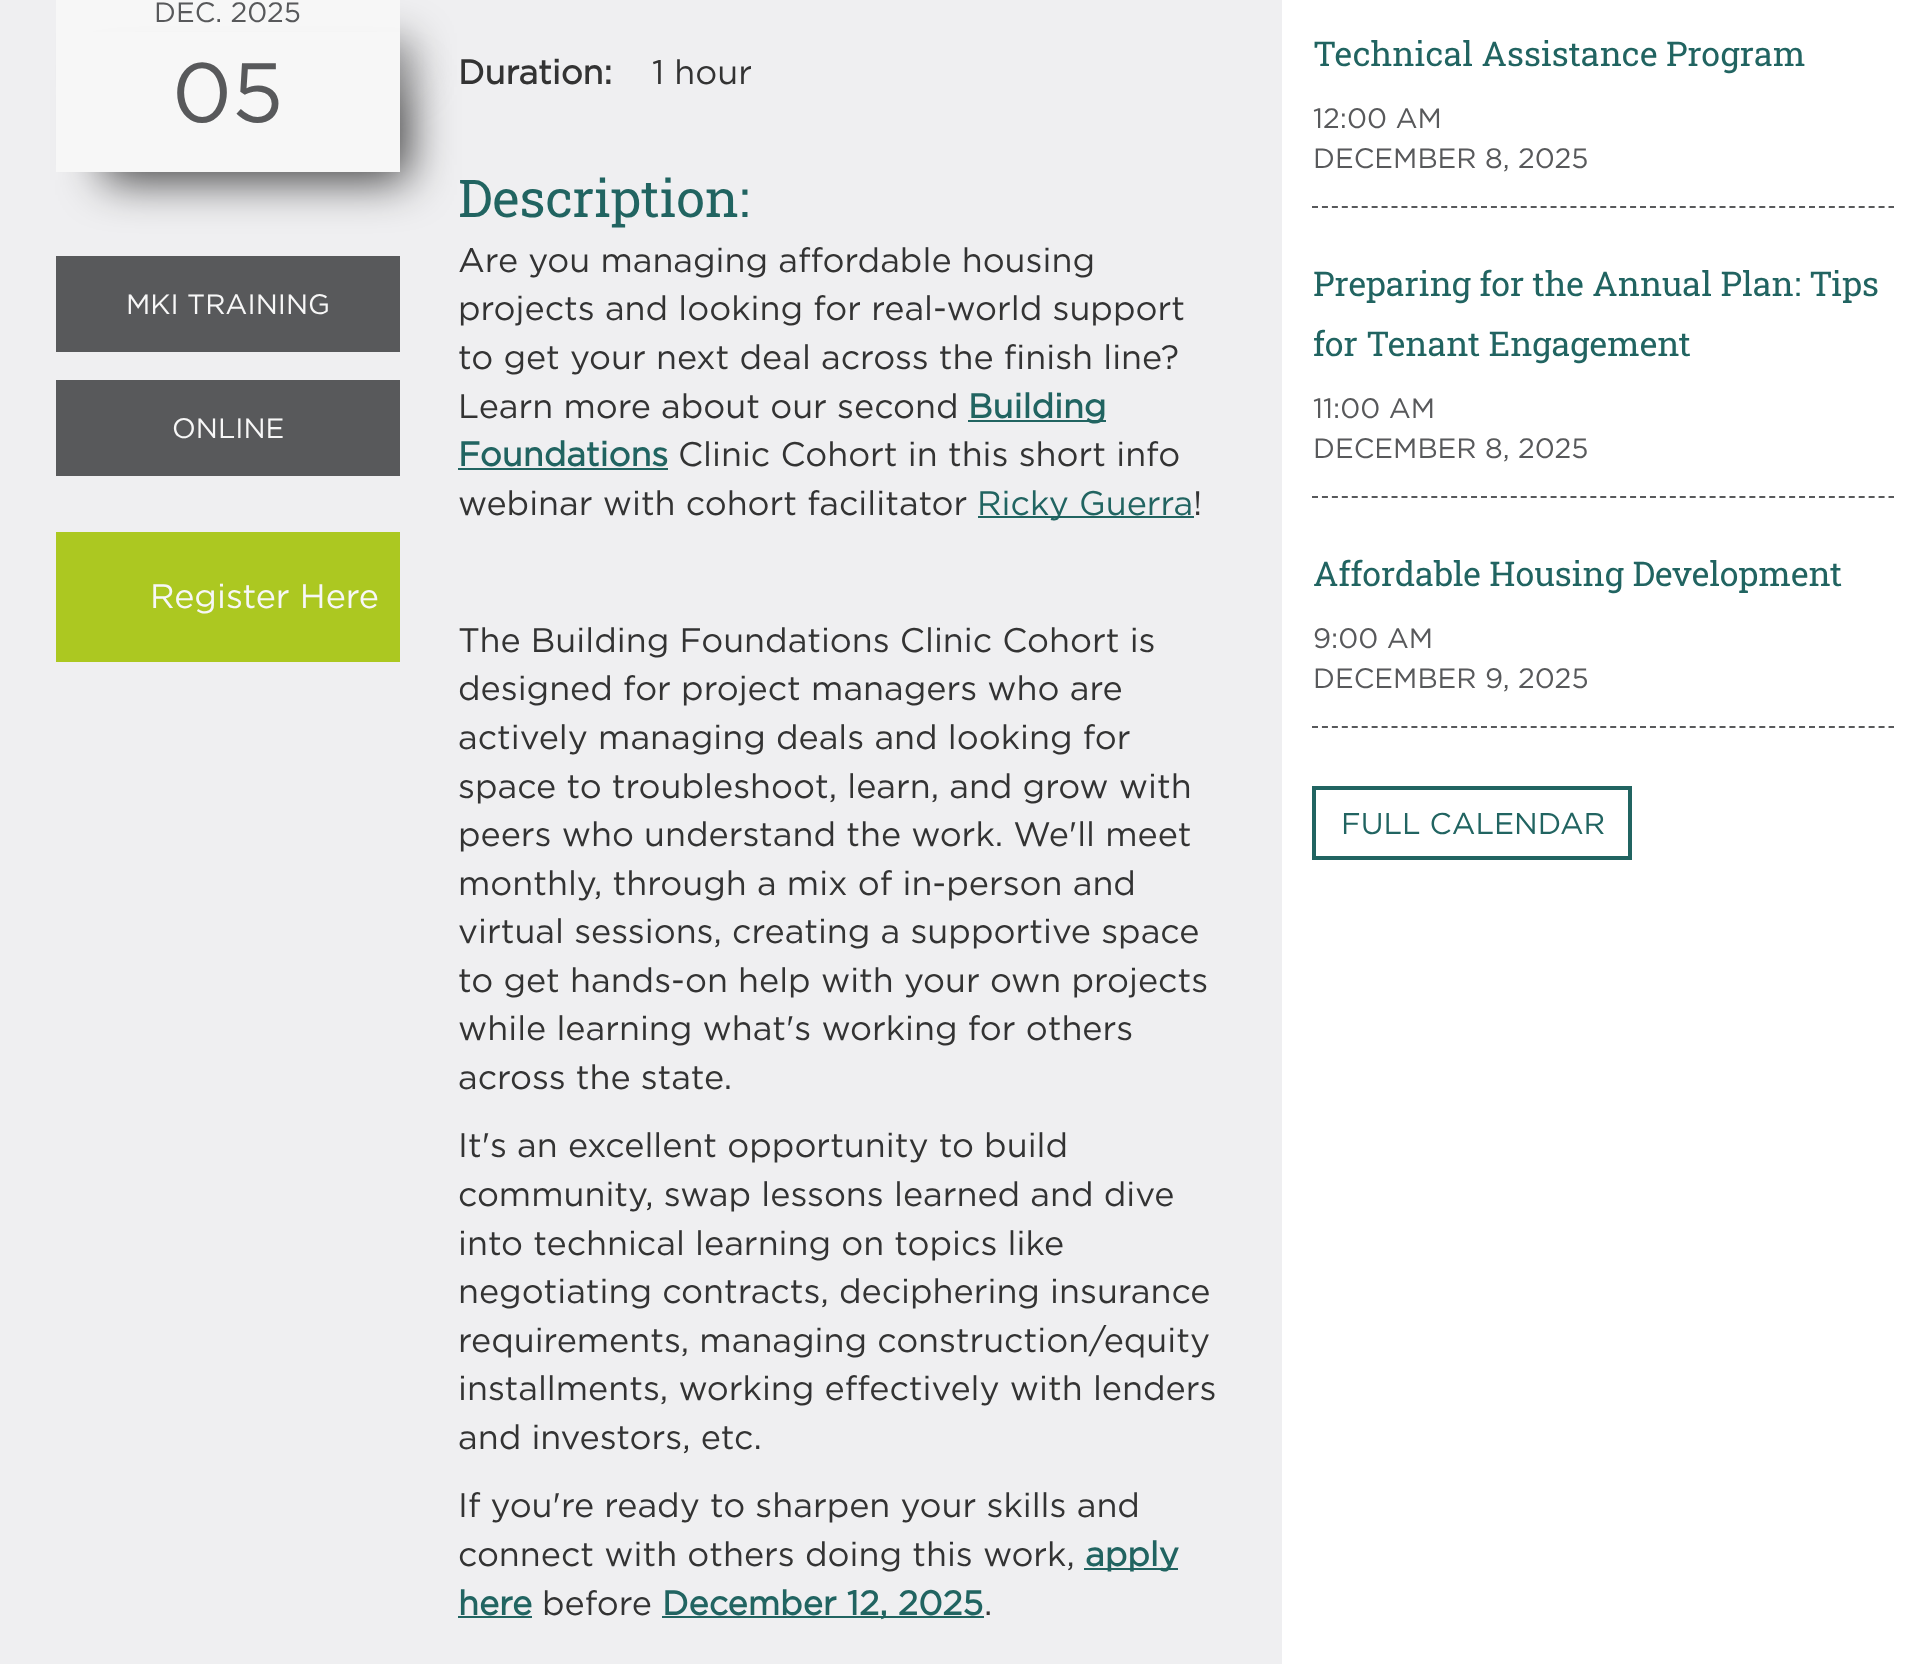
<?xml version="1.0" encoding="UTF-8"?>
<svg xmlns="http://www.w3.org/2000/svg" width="1924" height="1664">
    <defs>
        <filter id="blur1" x="-50%" y="-200%" width="200%" height="500%"><feGaussianBlur stdDeviation="23"/></filter>
        <clipPath id="clip1"><path d="M 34 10 H 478 V 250 H 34 Z M 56 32 H 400 V 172 H 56 Z" clip-rule="evenodd"/></clipPath>
    </defs>
    <rect width="100%" height="100%" fill="#FFFFFF"/>
    <rect x="0" y="0" width="1282" height="1664" fill="#EFEFF1"/>
    <rect x="104" y="46" width="304" height="28" fill="#000000" fill-opacity="0.75" filter="url(#blur1)"/>
    <rect x="56" y="0" width="344" height="172" fill="#F7F7F7"/>
    <g clip-path="url(#clip1)">
        <rect x="104" y="80" width="304" height="100" fill="#000000" fill-opacity="0.75" filter="url(#blur1)"/>
    </g>
    <text x="154" y="22" font-family="Gotham" font-size="28" fill="#58595B">DEC. 2025</text>
    <text x="172" y="122" font-family="Gotham" font-size="84" fill="#58595B">05</text>
    <rect x="56" y="256" width="344" height="96" fill="#58595B"/>
    <text x="126" y="314" font-family="Gotham" font-size="28" fill="#F7F7F7">MKI TRAINING</text>
    <rect x="56" y="380" width="344" height="96" fill="#58595B"/>
    <text x="172" y="438" font-family="Gotham" font-size="28" fill="#F7F7F7">ONLINE</text>
    <rect x="56" y="532" width="344" height="130" fill="#ACC821"/>
    <text x="150" y="608" font-family="Gotham" font-size="34" fill="#F7F7F7">Register Here</text>
    <text x="458" y="84" font-family="Gotham" font-size="34" font-weight="700" fill="#333333">Duration:</text>
    <text x="652" y="84" font-family="Gotham" font-size="34" fill="#333333">1 hour</text>
    <text x="458" y="217" font-family="Roboto Slab" font-size="52" fill="#216461">Description:</text>
    <text font-family="Gotham" font-size="34" fill="#333333">
        <tspan x="458" y="272">Are you managing affordable housing</tspan>
        <tspan x="458" y="320">projects and looking for real-world support</tspan>
        <tspan x="458" y="369">to get your next deal across the finish line?</tspan>
        <tspan x="458" y="418">Learn more about our second</tspan>
    </text>
    <rect x="968" y="420" width="138" height="2" fill="#216461"/>
    <text x="968" y="418" font-family="Gotham" font-size="34" font-weight="700" fill="#216461">Building</text>
    <text x="458" y="466" font-family="Gotham" font-size="34" font-weight="700" fill="#216461">Foundations</text>
    <rect x="458" y="468" width="210" height="2" fill="#216461"/>
    <text x="678" y="466" font-family="Gotham" font-size="34" fill="#333333">Clinic Cohort in this short info</text>
    <text x="458" y="515" font-family="Gotham" font-size="34" fill="#333333">webinar with cohort facilitator</text>
    <rect x="978" y="516" width="216" height="2" fill="#216461"/>
    <text x="977" y="515" font-family="Gotham" font-size="34" fill="#216461">Ricky Guerra</text>
    <text x="1193" y="515" font-family="Gotham" font-size="34" fill="#333333">!</text>
    <text font-family="Gotham" font-size="34" fill="#333333">
        <tspan x="458" y="652">The Building Foundations Clinic Cohort is</tspan>
        <tspan x="458" y="700">designed for project managers who are</tspan>
        <tspan x="458" y="749">actively managing deals and looking for</tspan>
        <tspan x="458" y="798">space to troubleshoot, learn, and grow with</tspan>
        <tspan x="458" y="846">peers who understand the work. We'll meet</tspan>
        <tspan x="458" y="895">monthly, through a mix of in-person and</tspan>
        <tspan x="458" y="943">virtual sessions, creating a supportive space</tspan>
        <tspan x="458" y="992">to get hands-on help with your own projects</tspan>
        <tspan x="458" y="1040">while learning what's working for others</tspan>
        <tspan x="458" y="1089">across the state.</tspan>
    </text>
    <text font-family="Gotham" font-size="34" fill="#333333">
        <tspan x="458" y="1157">It's an excellent opportunity to build</tspan>
        <tspan x="458" y="1206">community, swap lessons learned and dive</tspan>
        <tspan x="458" y="1255">into technical learning on topics like</tspan>
        <tspan x="458" y="1303">negotiating contracts, deciphering insurance</tspan>
        <tspan x="458" y="1352">requirements, managing construction/equity</tspan>
        <tspan x="458" y="1400">installments, working effectively with lenders</tspan>
        <tspan x="458" y="1449">and investors, etc.</tspan>
    </text>
    <text font-family="Gotham" font-size="34" fill="#333333">
        <tspan x="458" y="1517">If you're ready to sharpen your skills and</tspan>
        <tspan x="458" y="1566">connect with others doing this work,</tspan>
    </text>
    <rect x="1084" y="1568" width="94" height="2" fill="#216461"/>
    <text x="1085" y="1566" font-family="Gotham" font-size="34" font-weight="700" fill="#216461">apply</text>
    <text x="458" y="1615" font-family="Gotham" font-size="34" font-weight="700" fill="#216461">here</text>
    <rect x="458" y="1616" width="74" height="2" fill="#216461"/>
    <text x="542" y="1615" font-family="Gotham" font-size="34" fill="#333333">before</text>
    <rect x="662" y="1616" width="322" height="2" fill="#216461"/>
    <text x="662" y="1615" font-family="Gotham" font-size="34" font-weight="700" fill="#216461">December 12, 2025</text>
    <text x="984" y="1615" font-family="Gotham" font-size="34" fill="#333333">.</text>
    <path d="M 1312 207 H 1894" fill="none" stroke="#58595B" stroke-width="2" stroke-dasharray="6 3.94"/>
    <text x="1313" y="66" font-family="Roboto Slab" font-size="34" fill="#216461">Technical Assistance Program</text>
    <text font-family="Gotham" font-size="28" fill="#58595B">
        <tspan x="1313" y="128">12:00 AM</tspan>
        <tspan x="1313" y="168">DECEMBER 8, 2025</tspan>
    </text>
    <path d="M 1312 497 H 1894" fill="none" stroke="#58595B" stroke-width="2" stroke-dasharray="6 3.94"/>
    <text font-family="Roboto Slab" font-size="34" fill="#216461">
        <tspan x="1313" y="296">Preparing for the Annual Plan: Tips</tspan>
        <tspan x="1313" y="356">for Tenant Engagement</tspan>
    </text>
    <text font-family="Gotham" font-size="28" fill="#58595B">
        <tspan x="1313" y="418">11:00 AM</tspan>
        <tspan x="1313" y="458">DECEMBER 8, 2025</tspan>
    </text>
    <path d="M 1312 727 H 1894" fill="none" stroke="#58595B" stroke-width="2" stroke-dasharray="6 3.94"/>
    <text x="1313" y="586" font-family="Roboto Slab" font-size="34" fill="#216461">Affordable Housing Development</text>
    <text font-family="Gotham" font-size="28" fill="#58595B">
        <tspan x="1313" y="648">9:00 AM</tspan>
        <tspan x="1313" y="688">DECEMBER 9, 2025</tspan>
    </text>
    <rect x="1314" y="788" width="316" height="70" fill="none" stroke="#216461" stroke-width="4"/>
    <text x="1341" y="834" font-family="Gotham" font-size="30" fill="#216461">FULL CALENDAR</text>
</svg>
